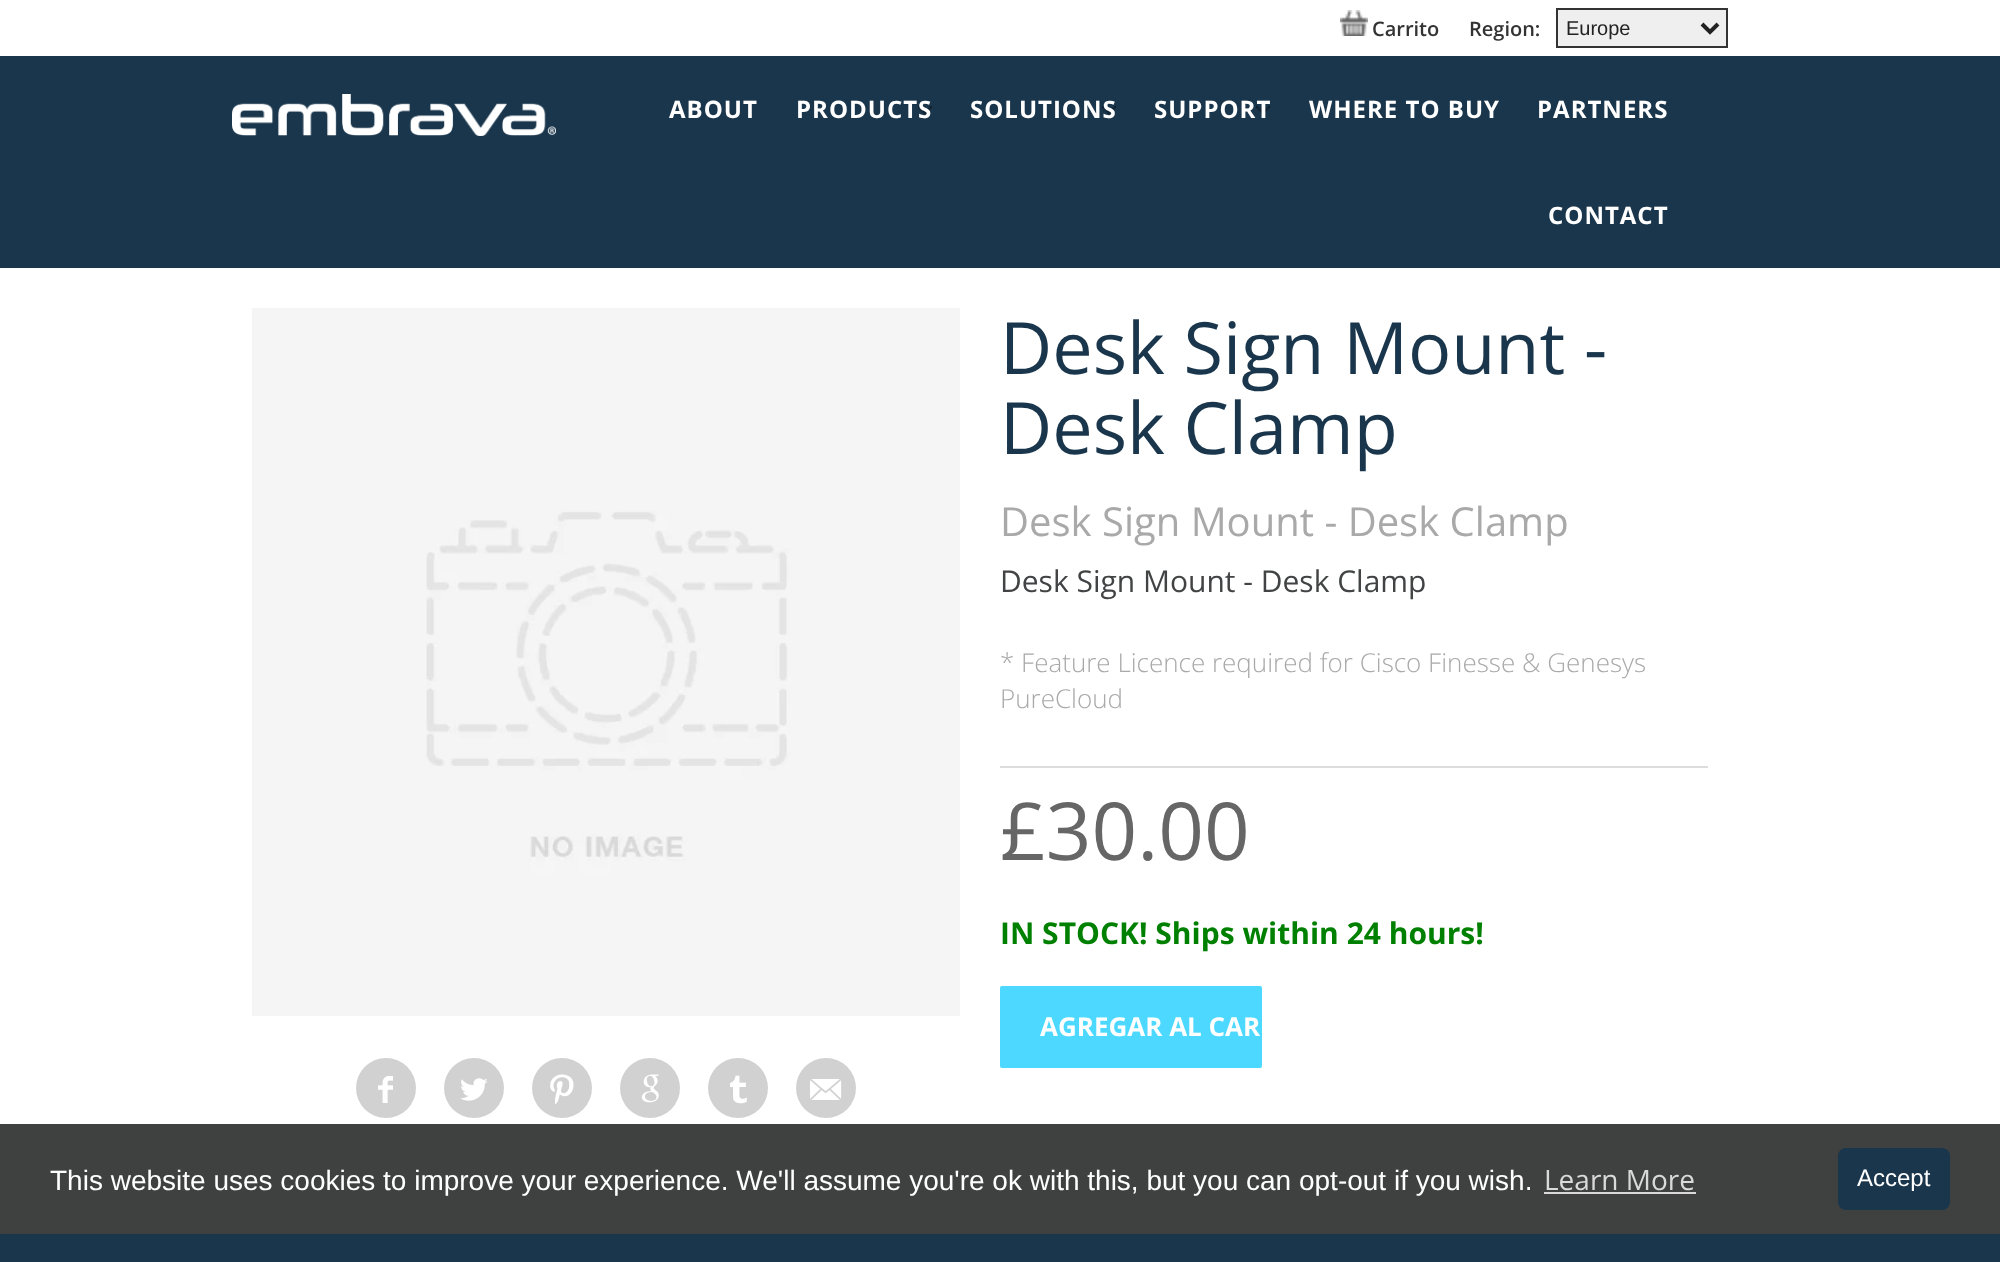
<?xml version="1.0" encoding="UTF-8"?>
<svg xmlns="http://www.w3.org/2000/svg" width="2000" height="1262">
    <rect width="100%" height="100%" fill="#FFFFFF"/>
    <image x="1340" y="10" width="28" height="26" href="img_01.png"/>
    <text x="1372" y="36" font-family="Open Sans" font-size="20" font-weight="600" fill="#333333">Carrito</text>
    <text x="1469" y="36" font-family="Open Sans" font-size="20" font-weight="600" fill="#333333">Region:</text>
    <rect x="1557" y="9" width="170" height="38" fill="#EFEFEF" stroke="#333333" stroke-width="2"/>
    <path d="M 1702 24 L 1710 32 L 1718 24" fill="none" stroke="#222222" stroke-width="4"/>
    <text x="1566" y="35" font-family="Liberation Sans" font-size="20" fill="#222222">Europe</text>
    <rect x="0" y="56" width="2000" height="212" fill="#1A364C"/>
    <image x="232" y="94" width="324" height="42" href="img_02.png"/>
    <text x="669" y="118" font-family="Open Sans" font-size="24" font-weight="700" letter-spacing="1" fill="#FFFFFF">ABOUT</text>
    <image x="918" y="106" width="14" height="8" href="img_03.png"/>
    <text x="796" y="118" font-family="Open Sans" font-size="24" font-weight="700" letter-spacing="1" fill="#FFFFFF">PRODUCTS</text>
    <image x="1102" y="106" width="14" height="8" href="img_03.png"/>
    <text x="970" y="118" font-family="Open Sans" font-size="24" font-weight="700" letter-spacing="1" fill="#FFFFFF">SOLUTIONS</text>
    <image x="1256" y="106" width="14" height="8" href="img_03.png"/>
    <text x="1154" y="118" font-family="Open Sans" font-size="24" font-weight="700" letter-spacing="1" fill="#FFFFFF">SUPPORT</text>
    <text x="1309" y="118" font-family="Open Sans" font-size="24" font-weight="700" letter-spacing="1" fill="#FFFFFF">WHERE TO BUY</text>
    <text x="1537" y="118" font-family="Open Sans" font-size="24" font-weight="700" letter-spacing="1" fill="#FFFFFF">PARTNERS</text>
    <text x="1548" y="224" font-family="Open Sans" font-size="24" font-weight="700" letter-spacing="1" fill="#FFFFFF">CONTACT</text>
    <image x="252" y="308" width="708" height="708" href="img_04.png"/>
    <circle cx="386" cy="1088" r="30" fill="#D1D1D1"/>
    <image x="378" y="1076" width="15" height="27" href="img_05.png"/>
    <circle cx="474" cy="1088" r="30" fill="#D1D1D1"/>
    <image x="460" y="1078" width="28" height="23" href="img_06.png"/>
    <circle cx="562" cy="1088" r="30" fill="#D1D1D1"/>
    <image x="550" y="1074" width="24" height="31" href="img_07.png"/>
    <circle cx="650" cy="1088" r="30" fill="#D1D1D1"/>
    <image x="641" y="1074" width="18" height="29" href="img_08.png"/>
    <circle cx="738" cy="1088" r="30" fill="#D1D1D1"/>
    <image x="730" y="1075" width="17" height="29" href="img_09.png"/>
    <circle cx="826" cy="1088" r="30" fill="#D1D1D1"/>
    <image x="810" y="1079" width="32" height="21" href="img_10.png"/>
    <text font-family="Open Sans" font-size="72" fill="#1A364C">
        <tspan x="1000" y="374">Desk Sign Mount -</tspan>
        <tspan x="1000" y="454">Desk Clamp</tspan>
    </text>
    <text x="1000" y="536" font-family="Open Sans" font-size="40" fill="#A9A9A9">Desk Sign Mount - Desk Clamp</text>
    <text x="1000" y="592" font-family="Open Sans" font-size="30" fill="#424344">Desk Sign Mount - Desk Clamp</text>
    <text font-family="Open Sans" font-size="26" font-weight="300" fill="#A9A9A9">
        <tspan x="1000" y="672">* Feature Licence required for Cisco Finesse &amp; Genesys</tspan>
        <tspan x="1000" y="708">PureCloud</tspan>
    </text>
    <rect x="1000" y="766" width="708" height="2" fill="#DDDDDD"/>
    <text x="1000" y="860" font-family="Open Sans" font-size="80" fill="#666666">£30.00</text>
    <text x="1000" y="944" font-family="Open Sans" font-size="30" font-weight="700" fill="#008000">IN STOCK! Ships within 24 hours!</text>
    <rect x="1000" y="986" width="262" height="82" rx="2" fill="#4DD9FF"/>
    <text x="1040" y="1036" font-family="Open Sans" font-size="26" font-weight="700" fill="#FFFFFF">AGREGAR AL CAR</text>
    <rect x="0" y="1124" width="2000" height="110" fill="#3F4040"/>
    <text x="50" y="1190" font-family="Liberation Sans" font-size="28" fill="#FFFFFF">This website uses cookies to improve your experience. We'll assume you're ok with this, but you can opt-out if you wish.</text>
    <text x="1544" y="1190" font-family="Open Sans" font-size="28" fill="#D9D9D9">Learn More</text>
    <rect x="1544" y="1192" width="152" height="2" fill="#D9D9D9"/>
    <rect x="1838" y="1148" width="112" height="62" rx="8" fill="#1A364C"/>
    <text x="1857" y="1186" font-family="Liberation Sans" font-size="24" fill="#FFFFFF">Accept</text>
    <rect x="0" y="1234" width="2000" height="28" fill="#1A364C"/>
</svg>
